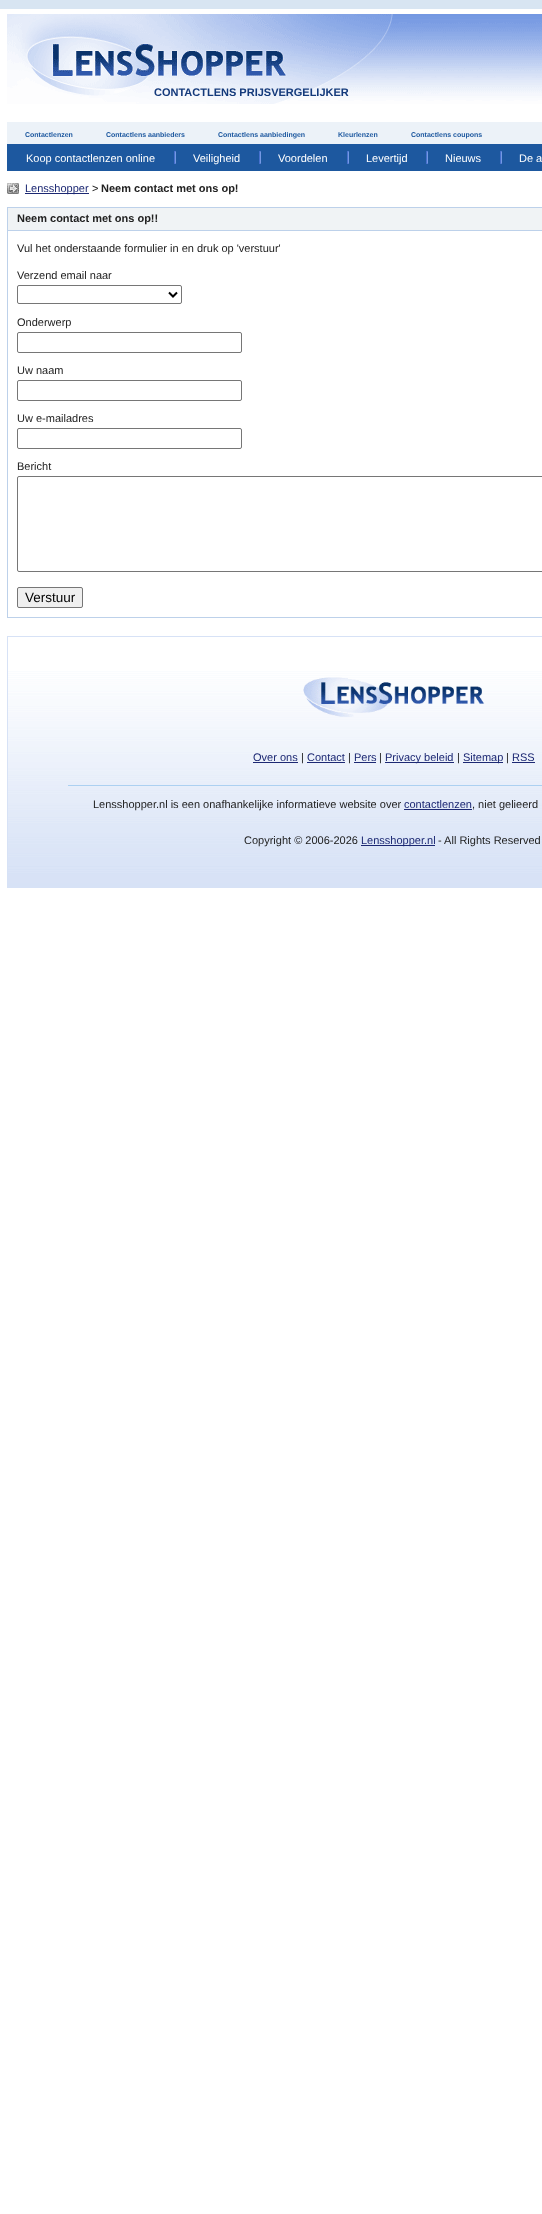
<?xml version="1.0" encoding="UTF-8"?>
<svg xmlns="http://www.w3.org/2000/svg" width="542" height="2214">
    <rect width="100%" height="100%" fill="#FFFFFF"/>
    <rect x="0" y="0" width="542" height="9" fill="#D8E5F2"/>
    <image x="7" y="14" width="535" height="90" href="img_01.png"/>
    <text x="154" y="96" font-family="Liberation Sans" font-size="11" font-weight="700" fill="#143A7B">CONTACTLENS PRIJSVERGELIJKER</text>
    <rect x="7" y="122" width="535" height="22" fill="#ECF2F8"/>
    <text x="25" y="137" font-family="Liberation Sans" font-size="7" font-weight="700" fill="#1D589F">Contactlenzen</text>
    <text x="106" y="137" font-family="Liberation Sans" font-size="7" font-weight="700" fill="#1D589F">Contactlens aanbieders</text>
    <text x="218" y="137" font-family="Liberation Sans" font-size="7" font-weight="700" fill="#1D589F">Contactlens aanbiedingen</text>
    <text x="338" y="137" font-family="Liberation Sans" font-size="7" font-weight="700" fill="#1D589F">Kleurlenzen</text>
    <text x="411" y="137" font-family="Liberation Sans" font-size="7" font-weight="700" fill="#1D589F">Contactlens coupons</text>
    <rect x="7" y="144" width="535" height="27" fill="#1D589F"/>
    <text x="26" y="162" font-family="Liberation Sans" font-size="11" fill="#FFFFFF">Koop contactlenzen online</text>
    <image x="174" y="151" width="2" height="13" href="img_02.png"/>
    <text x="193" y="162" font-family="Liberation Sans" font-size="11" fill="#FFFFFF">Veiligheid</text>
    <image x="259" y="151" width="2" height="13" href="img_02.png"/>
    <text x="278" y="162" font-family="Liberation Sans" font-size="11" fill="#FFFFFF">Voordelen</text>
    <image x="347" y="151" width="2" height="13" href="img_02.png"/>
    <text x="366" y="162" font-family="Liberation Sans" font-size="11" fill="#FFFFFF">Levertijd</text>
    <image x="426" y="151" width="2" height="13" href="img_02.png"/>
    <text x="445" y="162" font-family="Liberation Sans" font-size="11" fill="#FFFFFF">Nieuws</text>
    <image x="500" y="151" width="2" height="13" href="img_02.png"/>
    <text x="519" y="162" font-family="Liberation Sans" font-size="11" fill="#FFFFFF">De a</text>
    <image x="7" y="183" width="12" height="11" href="img_03.png"/>
    <rect x="25" y="193" width="64" height="1" fill="#1C2873"/>
    <text x="25" y="192" font-family="Liberation Sans" font-size="11" fill="#1C2873">Lensshopper</text>
    <text x="92" y="192" font-family="Liberation Sans" font-size="11" fill="#222222">&gt;</text>
    <text x="101" y="192" font-family="Liberation Sans" font-size="11" font-weight="700" fill="#222222">Neem contact met ons op!</text>
    <rect x="7.5" y="207.5" width="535" height="410" fill="none" stroke="#BDD1EA"/>
    <rect x="8" y="208" width="534" height="22" fill="#F0F3F5"/>
    <rect x="8" y="230" width="534" height="1" fill="#BDD1EA"/>
    <text x="17" y="222" font-family="Liberation Sans" font-size="11" font-weight="700" fill="#222222">Neem contact met ons op!!</text>
    <text x="17" y="252" font-family="Liberation Sans" font-size="11" fill="#222222">Vul het onderstaande formulier in en druk op 'verstuur'</text>
    <text x="17" y="279" font-family="Liberation Sans" font-size="11" fill="#222222">Verzend email naar</text>
    <rect x="17.5" y="285.5" width="164" height="18" rx="1.5" fill="none" stroke="#767676"/>
    <path d="M 169 292.5 L 173 296.5 L 177 292.5" fill="none" stroke="#000000" stroke-width="2"/>
    <text x="17" y="326" font-family="Liberation Sans" font-size="11" fill="#222222">Onderwerp</text>
    <rect x="17.5" y="332.5" width="224" height="20" rx="1.5" fill="none" stroke="#767676"/>
    <text x="17" y="374" font-family="Liberation Sans" font-size="11" fill="#222222">Uw naam</text>
    <rect x="17.5" y="380.5" width="224" height="20" rx="1.5" fill="none" stroke="#767676"/>
    <text x="17" y="422" font-family="Liberation Sans" font-size="11" fill="#222222">Uw e-mailadres</text>
    <rect x="17.5" y="428.5" width="224" height="20" rx="1.5" fill="none" stroke="#767676"/>
    <text x="17" y="470" font-family="Liberation Sans" font-size="11" fill="#222222">Bericht</text>
    <rect x="17.5" y="476.5" width="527" height="95" rx="1.5" fill="none" stroke="#767676"/>
    <rect x="17.5" y="587.5" width="65" height="20" rx="1.5" fill="#EFEFEF" stroke="#767676"/>
    <text x="25" y="602" font-family="Liberation Sans" font-size="13.5" fill="#000000">Verstuur</text>
    <image x="8" y="671" width="534" height="217" href="img_04.png"/>
    <rect x="7" y="636" width="1" height="252" fill="#D7E2F6"/>
    <rect x="8" y="636" width="534" height="1" fill="#D7E2F6"/>
    <image x="303" y="677" width="182" height="40" href="img_05.png"/>
    <text x="253" y="761" font-family="Liberation Sans" font-size="11" fill="#1C2873">Over ons</text>
    <rect x="253" y="762" width="45" height="1" fill="#1C2873"/>
    <text x="301" y="761" font-family="Liberation Sans" font-size="11" fill="#222222">|</text>
    <text x="307" y="761" font-family="Liberation Sans" font-size="11" fill="#1C2873">Contact</text>
    <rect x="307" y="762" width="38" height="1" fill="#1C2873"/>
    <text x="348" y="761" font-family="Liberation Sans" font-size="11" fill="#222222">|</text>
    <text x="354" y="761" font-family="Liberation Sans" font-size="11" fill="#1C2873">Pers</text>
    <rect x="354" y="762" width="22" height="1" fill="#1C2873"/>
    <text x="379" y="761" font-family="Liberation Sans" font-size="11" fill="#222222">|</text>
    <rect x="385" y="762" width="69" height="1" fill="#1C2873"/>
    <text x="385" y="761" font-family="Liberation Sans" font-size="11" fill="#1C2873">Privacy beleid</text>
    <text x="457" y="761" font-family="Liberation Sans" font-size="11" fill="#222222">|</text>
    <rect x="463" y="762" width="40" height="1" fill="#1C2873"/>
    <text x="463" y="761" font-family="Liberation Sans" font-size="11" fill="#1C2873">Sitemap</text>
    <text x="506" y="761" font-family="Liberation Sans" font-size="11" fill="#222222">|</text>
    <text x="512" y="761" font-family="Liberation Sans" font-size="11" fill="#1C2873">RSS</text>
    <rect x="512" y="762" width="23" height="1" fill="#1C2873"/>
    <rect x="68" y="785" width="474" height="1" fill="#ACD0F1"/>
    <text x="93" y="808" font-family="Liberation Sans" font-size="11" fill="#222222">Lensshopper.nl is een onafhankelijke informatieve website over</text>
    <text x="404" y="808" font-family="Liberation Sans" font-size="11" fill="#1C2873">contactlenzen</text>
    <rect x="404" y="809" width="68" height="1" fill="#1C2873"/>
    <text x="472" y="808" font-family="Liberation Sans" font-size="11" fill="#222222">, niet gelieerd</text>
    <text x="244" y="844" font-family="Liberation Sans" font-size="11" fill="#222222">Copyright © 2006-2026</text>
    <rect x="361" y="845" width="74" height="1" fill="#1C2873"/>
    <text x="361" y="844" font-family="Liberation Sans" font-size="11" fill="#1C2873">Lensshopper.nl</text>
    <text x="438" y="844" font-family="Liberation Sans" font-size="11" fill="#222222">- All Rights Reserved</text>
</svg>
